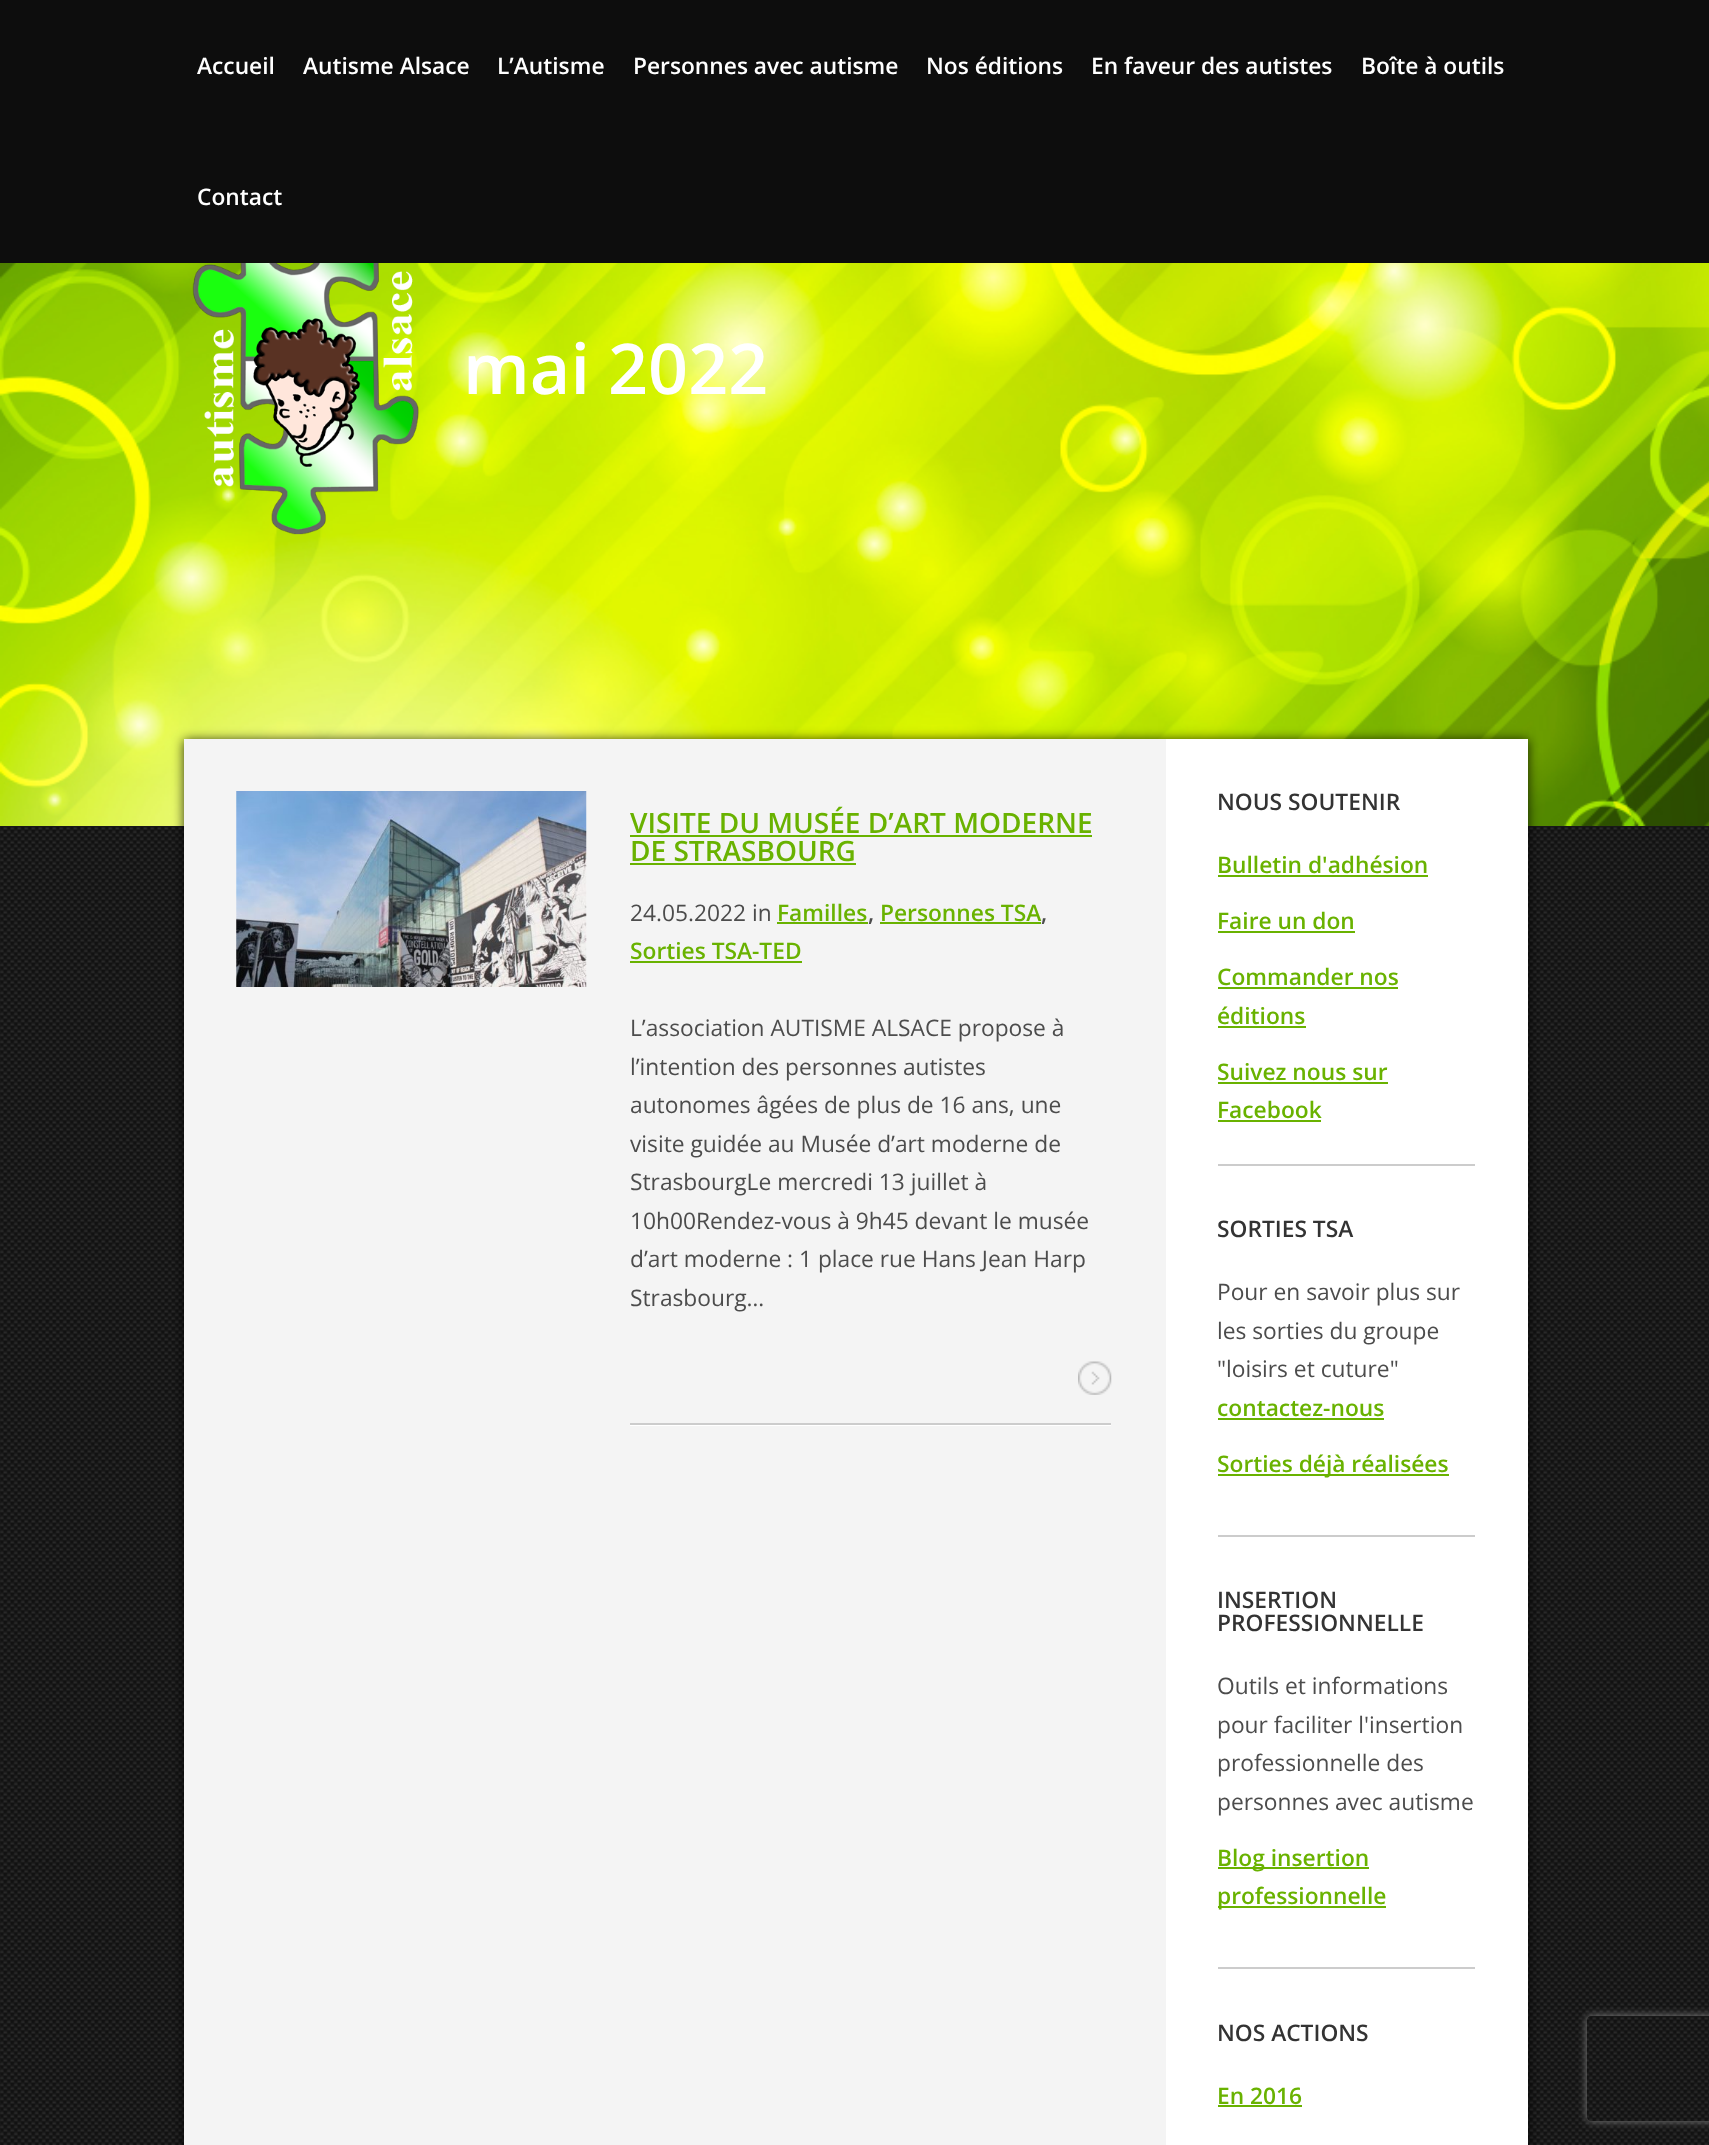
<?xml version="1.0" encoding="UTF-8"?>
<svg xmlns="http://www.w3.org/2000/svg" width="1709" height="2145">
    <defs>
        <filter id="blur1" x="-50%" y="-200%" width="200%" height="500%"><feGaussianBlur stdDeviation="6"/></filter>
        <clipPath id="clip1"><path d="M 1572 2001 H 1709 V 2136 H 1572 Z M 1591 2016 H 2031 C 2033 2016 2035 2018 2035 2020 V 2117 C 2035 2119 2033 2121 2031 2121 H 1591 C 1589 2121 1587 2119 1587 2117 V 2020 C 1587 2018 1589 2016 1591 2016 Z" clip-rule="evenodd"/></clipPath>
        <filter id="blur2" x="-50%" y="-200%" width="200%" height="500%"><feGaussianBlur stdDeviation="4.5"/></filter>
    </defs>
    <rect width="100%" height="100%" fill="#FFFFFF"/>
    <image x="0" y="826" width="1709" height="1319" href="img_01.png"/>
    <rect x="0" y="0" width="1709" height="263" fill="#0D0D0D"/>
    <text x="197" y="74" font-family="Open Sans" font-size="22.75" font-weight="600" fill="#FFFFFF">Accueil</text>
    <text x="303" y="74" font-family="Open Sans" font-size="22.75" font-weight="600" fill="#FFFFFF">Autisme Alsace</text>
    <text x="497" y="74" font-family="Open Sans" font-size="22.75" font-weight="600" fill="#FFFFFF">L’Autisme</text>
    <text x="633" y="74" font-family="Open Sans" font-size="22.75" font-weight="600" fill="#FFFFFF">Personnes avec autisme</text>
    <text x="926" y="74" font-family="Open Sans" font-size="22.75" font-weight="600" fill="#FFFFFF">Nos éditions</text>
    <text x="1091" y="74" font-family="Open Sans" font-size="22.75" font-weight="600" fill="#FFFFFF">En faveur des autistes</text>
    <text x="1361" y="74" font-family="Open Sans" font-size="22.75" font-weight="600" fill="#FFFFFF">Boîte à outils</text>
    <text x="197" y="205" font-family="Open Sans" font-size="22.75" font-weight="600" fill="#FFFFFF">Contact</text>
    <image x="0" y="263" width="1709" height="563" href="img_02.png"/>
    <image x="192" y="263" width="227" height="272" href="img_03.png"/>
    <text x="463" y="394" font-family="Open Sans" font-size="70" font-weight="600" fill="#FFFFFF">mai 2022</text>
    <rect x="184" y="740" width="1344" height="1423" fill="#000000" fill-opacity="0.8" filter="url(#blur1)"/>
    <rect x="184" y="739" width="982" height="1406" fill="#F4F4F4"/>
    <image x="236" y="791" width="351" height="196" href="img_04.png"/>
    <text font-family="Open Sans" font-size="28" font-weight="600" fill="#69B200">
        <tspan x="630" y="833">VISITE DU MUSÉE D’ART MODERNE</tspan>
        <tspan x="630" y="861">DE STRASBOURG</tspan>
    </text>
    <rect x="630" y="835" width="462" height="2" fill="#69B200"/>
    <rect x="630" y="863" width="226" height="2" fill="#69B200"/>
    <text x="630" y="921" font-family="Open Sans" font-size="22.75" fill="#4C4C4C">24.05.2022 in</text>
    <text x="777" y="921" font-family="Open Sans" font-size="22.75" font-weight="600" fill="#69B200">Familles</text>
    <text x="868" y="921" font-family="Open Sans" font-size="22.75" font-weight="600" fill="#4C4C4C">,</text>
    <rect x="777" y="922" width="91" height="2" fill="#69B200"/>
    <text x="880" y="921" font-family="Open Sans" font-size="22.75" font-weight="600" fill="#69B200">Personnes TSA</text>
    <text x="1041" y="921" font-family="Open Sans" font-size="22.75" font-weight="600" fill="#4C4C4C">,</text>
    <rect x="880" y="922" width="161" height="2" fill="#69B200"/>
    <text x="630" y="959" font-family="Open Sans" font-size="22.75" font-weight="600" fill="#69B200">Sorties TSA-TED</text>
    <rect x="630" y="961" width="172" height="2" fill="#69B200"/>
    <text font-family="Open Sans" font-size="22.75" fill="#4C4C4C">
        <tspan x="630" y="1036">L’association AUTISME ALSACE propose à</tspan>
        <tspan x="630" y="1075">l’intention des personnes autistes</tspan>
        <tspan x="630" y="1113">autonomes âgées de plus de 16 ans, une</tspan>
        <tspan x="630" y="1152">visite guidée au Musée d’art moderne de</tspan>
        <tspan x="630" y="1190">StrasbourgLe mercredi 13 juillet à</tspan>
        <tspan x="630" y="1229">10h00Rendez-vous à 9h45 devant le musée</tspan>
        <tspan x="630" y="1267">d’art moderne : 1 place rue Hans Jean Harp</tspan>
        <tspan x="630" y="1306">Strasbourg…</tspan>
    </text>
    <rect x="630" y="1425" width="481" height="1" fill="#FFFFFF"/>
    <rect x="630" y="1423" width="481" height="2" fill="#CCCCCC"/>
    <image x="1078" y="1361" width="34" height="34" href="img_05.png"/>
    <rect x="1166" y="739" width="362" height="1406" fill="#FFFFFF"/>
    <rect x="1218" y="1164" width="257" height="2" fill="#CCCCCC"/>
    <text x="1217" y="810" font-family="Open Sans" font-size="22.75" font-weight="600" fill="#333333">NOUS SOUTENIR</text>
    <text x="1217" y="873" font-family="Open Sans" font-size="22.75" font-weight="600" fill="#69B200">Bulletin d'adhésion</text>
    <rect x="1218" y="875" width="210" height="2" fill="#69B200"/>
    <text x="1217" y="929" font-family="Open Sans" font-size="22.75" font-weight="600" fill="#69B200">Faire un don</text>
    <rect x="1218" y="931" width="137" height="2" fill="#69B200"/>
    <text x="1217" y="985" font-family="Open Sans" font-size="22.75" font-weight="600" fill="#69B200">Commander nos</text>
    <rect x="1218" y="987" width="180" height="2" fill="#69B200"/>
    <text x="1217" y="1024" font-family="Open Sans" font-size="22.75" font-weight="600" fill="#69B200">éditions</text>
    <rect x="1218" y="1026" width="88" height="2" fill="#69B200"/>
    <text x="1217" y="1080" font-family="Open Sans" font-size="22.75" font-weight="600" fill="#69B200">Suivez nous sur</text>
    <rect x="1218" y="1082" width="170" height="2" fill="#69B200"/>
    <text x="1217" y="1118" font-family="Open Sans" font-size="22.75" font-weight="600" fill="#69B200">Facebook</text>
    <rect x="1218" y="1120" width="103" height="2" fill="#69B200"/>
    <rect x="1218" y="1535" width="257" height="2" fill="#CCCCCC"/>
    <text x="1217" y="1237" font-family="Open Sans" font-size="22.75" font-weight="600" fill="#333333">SORTIES TSA</text>
    <text font-family="Open Sans" font-size="22.75" fill="#4C4C4C">
        <tspan x="1217" y="1300">Pour en savoir plus sur</tspan>
        <tspan x="1217" y="1339">les sorties du groupe</tspan>
        <tspan x="1217" y="1377">"loisirs et cuture"</tspan>
    </text>
    <text x="1217" y="1416" font-family="Open Sans" font-size="22.75" font-weight="600" fill="#69B200">contactez-nous</text>
    <rect x="1218" y="1418" width="166" height="2" fill="#69B200"/>
    <rect x="1218" y="1474" width="231" height="2" fill="#69B200"/>
    <text x="1217" y="1472" font-family="Open Sans" font-size="22.75" font-weight="600" fill="#69B200">Sorties déjà réalisées</text>
    <rect x="1218" y="1967" width="257" height="2" fill="#CCCCCC"/>
    <text font-family="Open Sans" font-size="22.75" font-weight="600" fill="#333333">
        <tspan x="1217" y="1608">INSERTION</tspan>
        <tspan x="1217" y="1631">PROFESSIONNELLE</tspan>
    </text>
    <text font-family="Open Sans" font-size="22.75" fill="#4C4C4C">
        <tspan x="1217" y="1694">Outils et informations</tspan>
        <tspan x="1217" y="1733">pour faciliter l'insertion</tspan>
        <tspan x="1217" y="1771">professionnelle des</tspan>
        <tspan x="1217" y="1810">personnes avec autisme</tspan>
    </text>
    <rect x="1218" y="1867" width="151" height="2" fill="#69B200"/>
    <text x="1217" y="1866" font-family="Open Sans" font-size="22.75" font-weight="600" fill="#69B200">Blog insertion</text>
    <rect x="1218" y="1906" width="168" height="2" fill="#69B200"/>
    <text x="1217" y="1904" font-family="Open Sans" font-size="22.75" font-weight="600" fill="#69B200">professionnelle</text>
    <text x="1217" y="2041" font-family="Open Sans" font-size="22.75" font-weight="600" fill="#333333">NOS ACTIONS</text>
    <text x="1217" y="2104" font-family="Open Sans" font-size="22.75" font-weight="600" fill="#69B200">En 2016</text>
    <rect x="1218" y="2105" width="84" height="2" fill="#69B200"/>
    <g clip-path="url(#clip1)">
        <rect x="1587" y="2016" width="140" height="105" rx="4" fill="#808080" filter="url(#blur2)"/>
    </g>
</svg>
